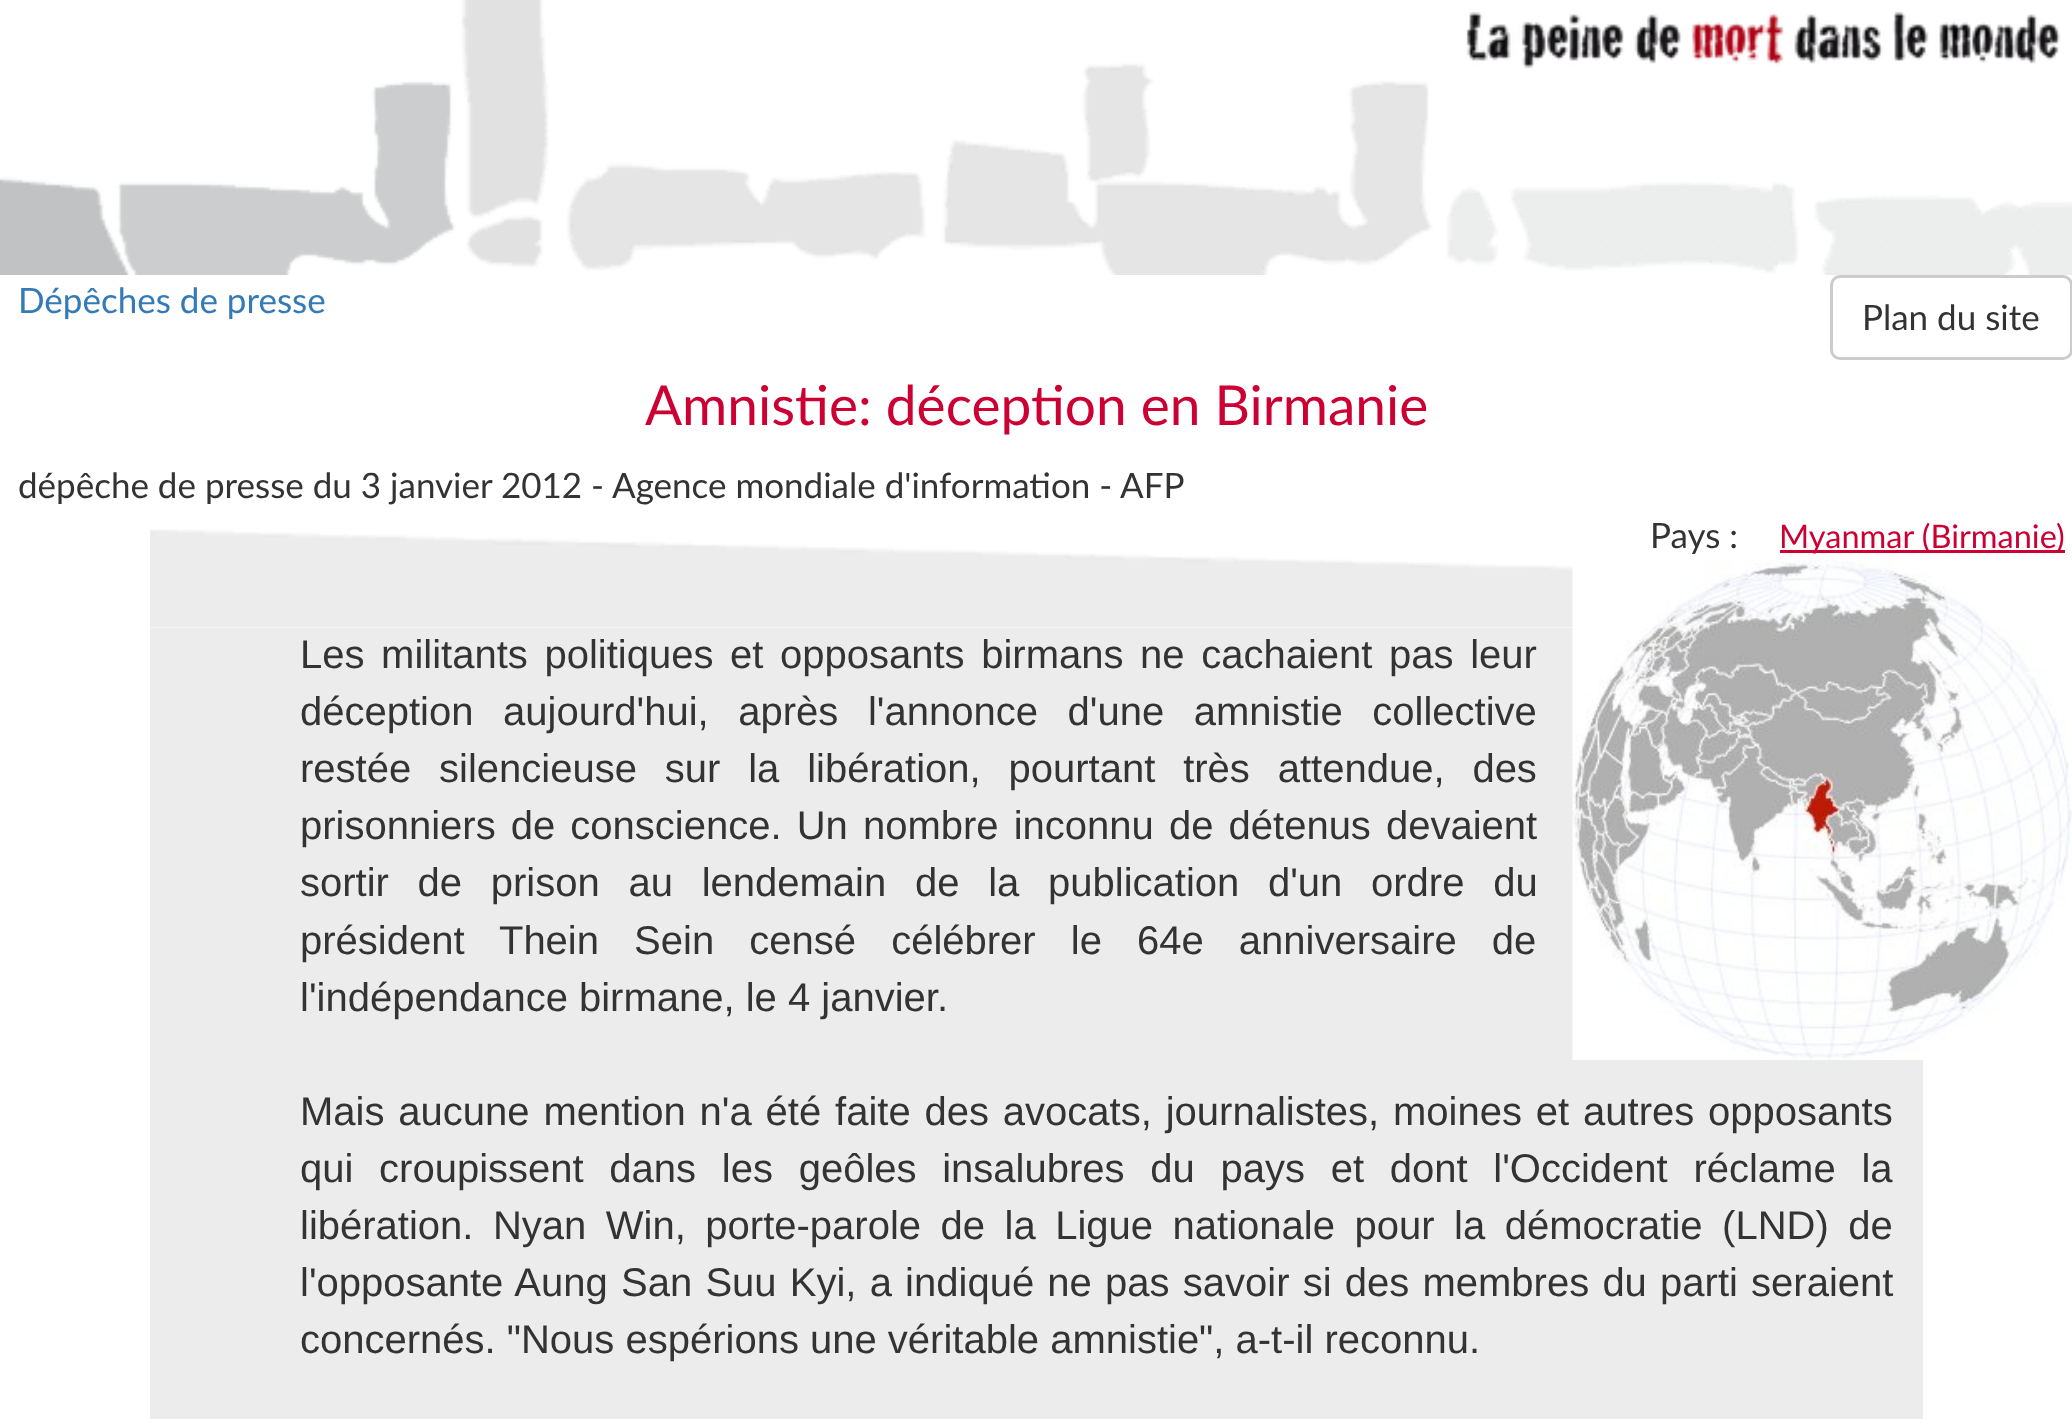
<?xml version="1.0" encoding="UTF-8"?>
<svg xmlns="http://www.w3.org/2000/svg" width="2072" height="1419">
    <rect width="100%" height="100%" fill="#FFFFFF"/>
    <image x="0" y="0" width="2072" height="275" href="img_01.png"/>
    <image x="1466" y="11" width="595" height="58" href="img_02.png"/>
    <text x="18" y="313" font-family="Lato" font-size="35" fill="#337AB7">Dépêches de presse</text>
    <rect x="1831.5" y="276.5" width="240" height="82" rx="8.5" fill="none" stroke="#CCCCCC" stroke-width="3"/>
    <text x="1862" y="330" font-family="Lato" font-size="35" fill="#333333">Plan du site</text>
    <text x="645" y="425" font-family="Lato" font-size="55" fill="#CC0033">Amnistie: déception en Birmanie</text>
    <text x="18" y="498" font-family="Lato" font-size="35" fill="#333333">dépêche de presse du 3 janvier 2012 -</text>
    <text x="612" y="498" font-family="Lato" font-size="35" fill="#333333">Agence mondiale d'information - AFP</text>
    <text x="1650" y="548" font-family="Lato" font-size="35" fill="#333333">Pays :</text>
    <rect x="1780" y="550" width="285" height="3" fill="#CC0033"/>
    <text x="1779" y="548" font-family="Lato" font-size="32.5" fill="#CC0033">Myanmar (Birmanie)</text>
    <rect x="150" y="628" width="1773" height="791" fill="#ECECED"/>
    <image x="150" y="529" width="1423" height="99" href="img_04.png"/>
    <image x="1572" y="560" width="500" height="500" href="img_03.png"/>
    <text font-family="Liberation Sans" font-size="40" fill="#333333">
        <tspan x="300" y="668" word-spacing="5.5">Les militants politiques et opposants birmans ne cachaient pas leur</tspan>
        <tspan x="300" y="725" word-spacing="18.5">déception aujourd'hui, après l'annonce d'une amnistie collective</tspan>
        <tspan x="300" y="782" word-spacing="16.75">restée silencieuse sur la libération, pourtant très attendue, des</tspan>
        <tspan x="300" y="839" word-spacing="4">prisonniers de conscience. Un nombre inconnu de détenus devaient</tspan>
        <tspan x="300" y="896" word-spacing="17.6">sortir de prison au lendemain de la publication d'un ordre du</tspan>
        <tspan x="300" y="954" word-spacing="24">président Thein Sein censé célébrer le 64e anniversaire de</tspan>
        <tspan x="300" y="1011">l'indépendance birmane, le 4 janvier.</tspan>
    </text>
    <text font-family="Liberation Sans" font-size="40" fill="#333333">
        <tspan x="300" y="1125" word-spacing="2.75">Mais aucune mention n'a été faite des avocats, journalistes, moines et autres opposants</tspan>
        <tspan x="300" y="1182" word-spacing="14.6">qui croupissent dans les geôles insalubres du pays et dont l'Occident réclame la</tspan>
        <tspan x="300" y="1239" word-spacing="8.4">libération. Nyan Win, porte-parole de la Ligue nationale pour la démocratie (LND) de</tspan>
        <tspan x="300" y="1296" word-spacing="2.1">l'opposante Aung San Suu Kyi, a indiqué ne pas savoir si des membres du parti seraient</tspan>
        <tspan x="300" y="1353">concernés. "Nous espérions une véritable amnistie", a-t-il reconnu.</tspan>
    </text>
</svg>
